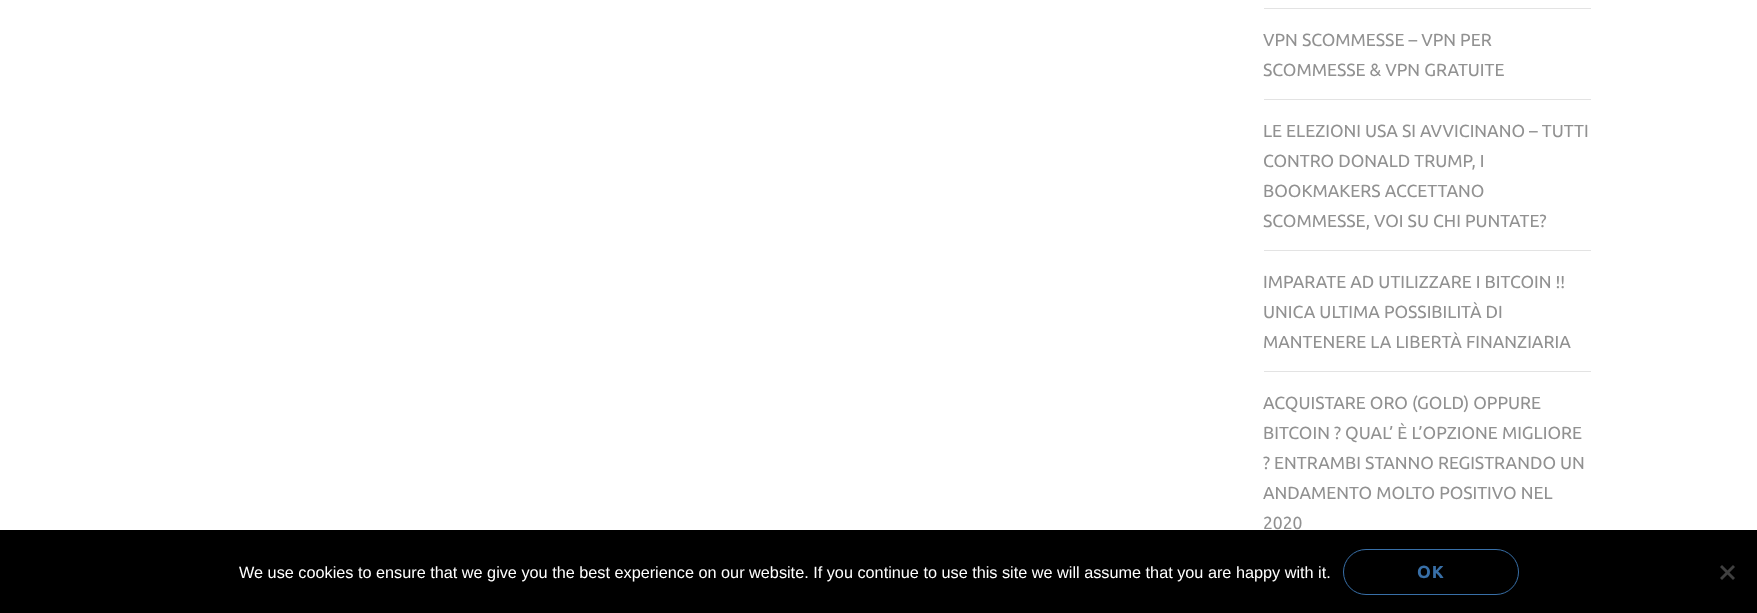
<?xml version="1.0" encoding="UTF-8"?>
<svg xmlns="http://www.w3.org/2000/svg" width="1757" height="613">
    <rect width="100%" height="100%" fill="#FFFFFF"/>
    <rect x="1264" y="8" width="327" height="1" fill="#E3E3E3"/>
    <rect x="1264" y="99" width="327" height="1" fill="#E3E3E3"/>
    <text font-family="Ubuntu" font-size="17.5" fill="#919191">
        <tspan x="1263" y="46">VPN SCOMMESSE – VPN PER</tspan>
        <tspan x="1263" y="76">SCOMMESSE &amp; VPN GRATUITE</tspan>
    </text>
    <rect x="1264" y="250" width="327" height="1" fill="#E3E3E3"/>
    <text font-family="Ubuntu" font-size="17.5" fill="#919191">
        <tspan x="1263" y="137">LE ELEZIONI USA SI AVVICINANO – TUTTI</tspan>
        <tspan x="1263" y="167">CONTRO DONALD TRUMP, I</tspan>
        <tspan x="1263" y="197">BOOKMAKERS ACCETTANO</tspan>
        <tspan x="1263" y="227">SCOMMESSE, VOI SU CHI PUNTATE?</tspan>
    </text>
    <rect x="1264" y="371" width="327" height="1" fill="#E3E3E3"/>
    <text font-family="Ubuntu" font-size="17.5" fill="#919191">
        <tspan x="1263" y="288">IMPARATE AD UTILIZZARE I BITCOIN !!</tspan>
        <tspan x="1263" y="318">UNICA ULTIMA POSSIBILITÀ DI</tspan>
        <tspan x="1263" y="348">MANTENERE LA LIBERTÀ FINANZIARIA</tspan>
    </text>
    <text font-family="Ubuntu" font-size="17.5" fill="#919191">
        <tspan x="1263" y="409">ACQUISTARE ORO (GOLD) OPPURE</tspan>
        <tspan x="1263" y="439">BITCOIN ? QUAL’ È L’OPZIONE MIGLIORE</tspan>
        <tspan x="1263" y="469">? ENTRAMBI STANNO REGISTRANDO UN</tspan>
        <tspan x="1263" y="499">ANDAMENTO MOLTO POSITIVO NEL</tspan>
        <tspan x="1263" y="529">2020</tspan>
    </text>
    <rect x="0" y="530" width="1757" height="83" fill="#000000"/>
    <text x="239" y="578" font-family="Liberation Sans" font-size="16.25" fill="#FFFFFF">We use cookies to ensure that we give you the best experience on our website. If you continue to use this site we will assume that you are happy with it.</text>
    <rect x="1343.5" y="549.5" width="175" height="45" rx="22.5" fill="none" stroke="#386FA7"/>
    <text x="1417" y="578" font-family="Ubuntu" font-size="17.5" font-weight="700" letter-spacing="1" fill="#386FA7">OK</text>
    <path d="M 1733 565 L 1735 567 L 1722 580 L 1720 578 Z" fill="#404040"/>
    <path d="M 1720 567 L 1722 565 L 1735 578 L 1733 580 Z" fill="#404040"/>
</svg>
